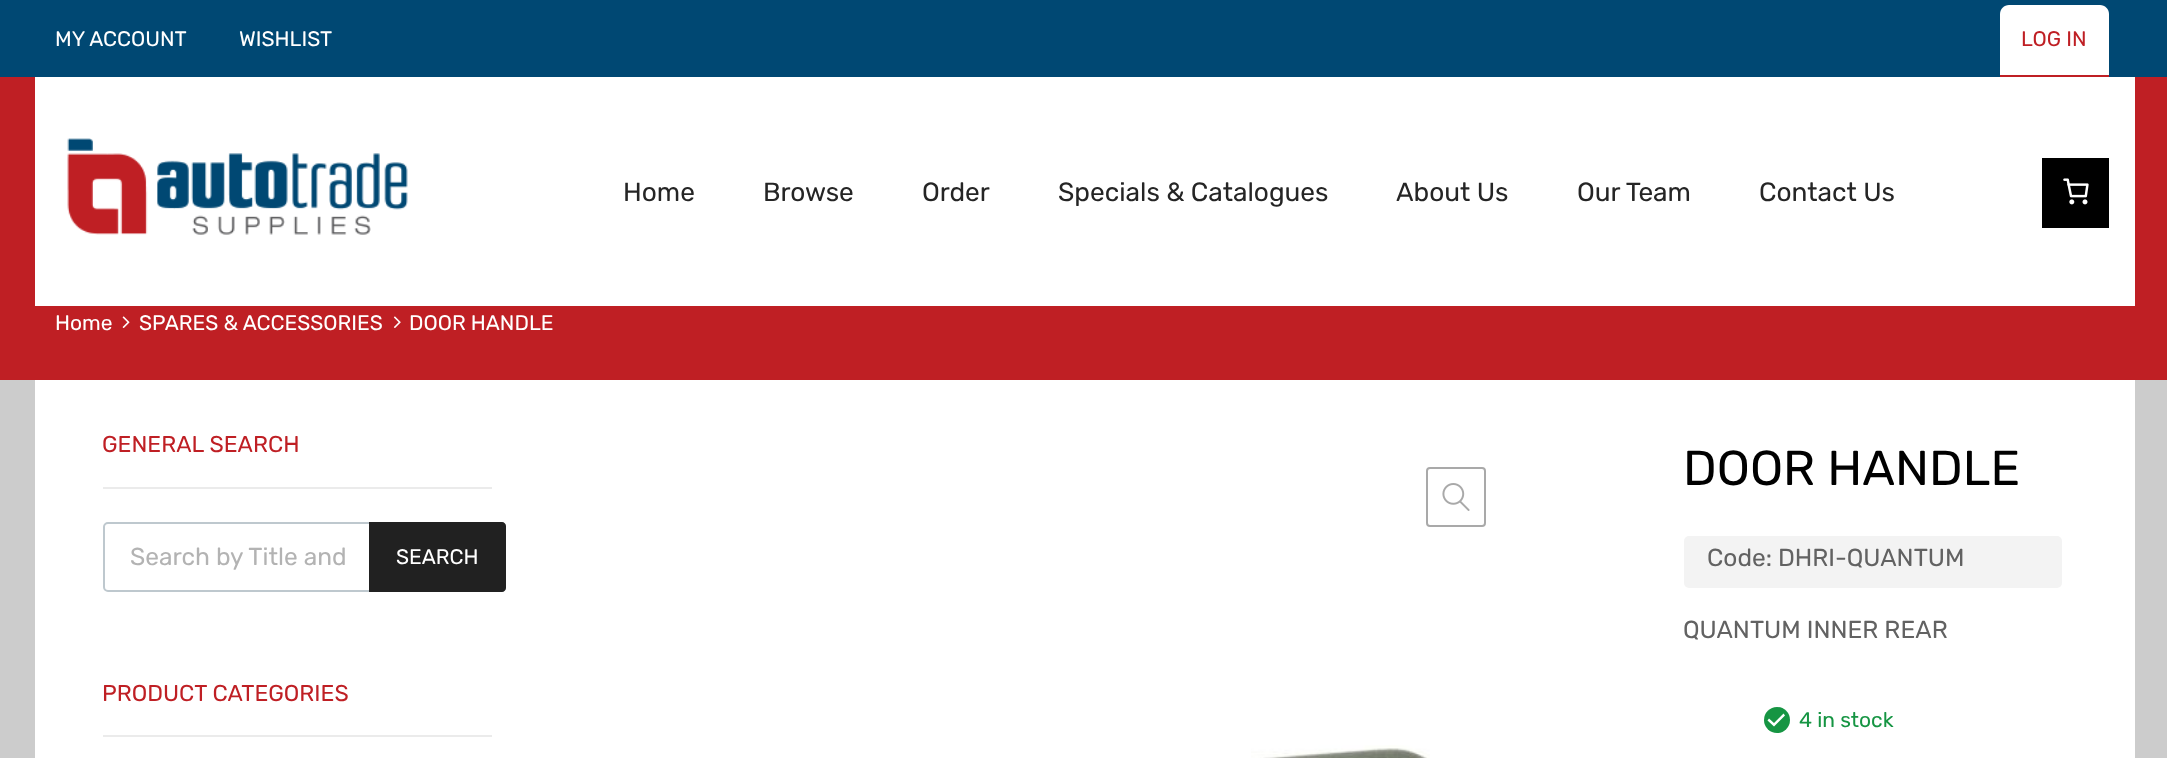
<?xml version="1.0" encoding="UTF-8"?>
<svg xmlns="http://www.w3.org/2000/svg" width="2167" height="758">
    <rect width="100%" height="100%" fill="#CCCCCC"/>
    <rect x="0" y="77" width="2167" height="303" fill="#BF1F24"/>
    <rect x="0" y="0" width="2167" height="77" fill="#004873"/>
    <text x="55" y="46" font-family="Rubik" font-size="21" font-weight="300" fill="#FFFFFF">MY ACCOUNT</text>
    <text x="239" y="46" font-family="Rubik" font-size="21" font-weight="300" fill="#FFFFFF">WISHLIST</text>
    <path d="M 2009 5 H 2100 C 2105 5 2109 9 2109 14 V 77 H 2000 V 14 C 2000 9 2004 5 2009 5 Z" fill="#FFFFFF"/>
    <text x="2021" y="46" font-family="Rubik" font-size="21" font-weight="300" fill="#BF1F24">LOG IN</text>
    <rect x="2000" y="75" width="109" height="2" fill="#BF1F24"/>
    <rect x="35" y="77" width="2100" height="229" fill="#FFFFFF"/>
    <image x="67" y="138" width="341" height="97" href="img_01.png"/>
    <text x="623" y="201" font-family="Rubik" font-size="26.25" font-weight="300" fill="#252525">Home</text>
    <text x="763" y="201" font-family="Rubik" font-size="26.25" font-weight="300" fill="#252525">Browse</text>
    <text x="922" y="201" font-family="Rubik" font-size="26.25" font-weight="300" fill="#252525">Order</text>
    <text x="1058" y="201" font-family="Rubik" font-size="26.25" font-weight="300" fill="#252525">Specials &amp; Catalogues</text>
    <text x="1396" y="201" font-family="Rubik" font-size="26.25" font-weight="300" fill="#252525">About Us</text>
    <text x="1577" y="201" font-family="Rubik" font-size="26.25" font-weight="300" fill="#252525">Our Team</text>
    <text x="1759" y="201" font-family="Rubik" font-size="26.25" font-weight="300" fill="#252525">Contact Us</text>
    <rect x="2042" y="158" width="67" height="70" fill="#000000"/>
    <image x="2063" y="178" width="26" height="27" href="img_02.png"/>
    <text x="55" y="330" font-family="Rubik" font-size="21" font-weight="300" fill="#FFFFFF">Home</text>
    <image x="122" y="316" width="8" height="12" href="img_03.png"/>
    <text x="139" y="330" font-family="Rubik" font-size="21" font-weight="300" fill="#FFFFFF">SPARES &amp; ACCESSORIES</text>
    <image x="393" y="316" width="8" height="12" href="img_04.png"/>
    <text x="409" y="330" font-family="Rubik" font-size="21" font-weight="300" fill="#FFFFFF">DOOR HANDLE</text>
    <rect x="35" y="380" width="2100" height="378" fill="#FFFFFF"/>
    <rect x="103" y="487" width="389" height="2" fill="#EBEBEB"/>
    <text x="102" y="452" font-family="Rubik" font-size="22.9" font-weight="300" fill="#BF1F24">GENERAL SEARCH</text>
    <rect x="104" y="523" width="401" height="68" rx="4" fill="none" stroke="#BEC8CE" stroke-width="2"/>
    <text x="130" y="565" font-family="Rubik" font-size="24.5" font-weight="300" fill="#B3B3B3">Search by Title and</text>
    <path d="M 369 522 H 502 C 504 522 506 524 506 526 V 588 C 506 590 504 592 502 592 H 369 Z" fill="#212121"/>
    <text x="396" y="564" font-family="Rubik" font-size="21" font-weight="300" fill="#FFFFFF">SEARCH</text>
    <rect x="103" y="735" width="389" height="2" fill="#EBEBEB"/>
    <text x="102" y="701" font-family="Rubik" font-size="22.9" font-weight="300" fill="#BF1F24">PRODUCT CATEGORIES</text>
    <rect x="1427" y="468" width="58" height="58" rx="3" fill="none" stroke="#A9A9A9" stroke-width="2"/>
    <image x="1442" y="483" width="28" height="28" href="img_05.png"/>
    <image x="1251" y="745" width="179" height="13" href="img_06.png"/>
    <text x="1683" y="485" font-family="Rubik" font-size="49" font-weight="300" fill="#000000">DOOR HANDLE</text>
    <rect x="1684" y="536" width="378" height="52" rx="5" fill="#F3F3F3"/>
    <text x="1707" y="566" font-family="Rubik" font-size="24.5" font-weight="300" fill="#626262">Code: DHRI-QUANTUM</text>
    <text x="1683" y="638" font-family="Rubik" font-size="24.5" font-weight="300" fill="#626262">QUANTUM INNER REAR</text>
    <circle cx="1777" cy="720" r="13" fill="#169543"/>
    <path d="M 1783.5 713.5 L 1774 723 L 1769 718.5 L 1767.5 720.5 L 1774 726.5 L 1785 715.5 Z" fill="#FFFFFF"/>
    <text x="1799" y="727" font-family="Rubik" font-size="21" font-weight="300" fill="#169543">4 in stock</text>
</svg>
